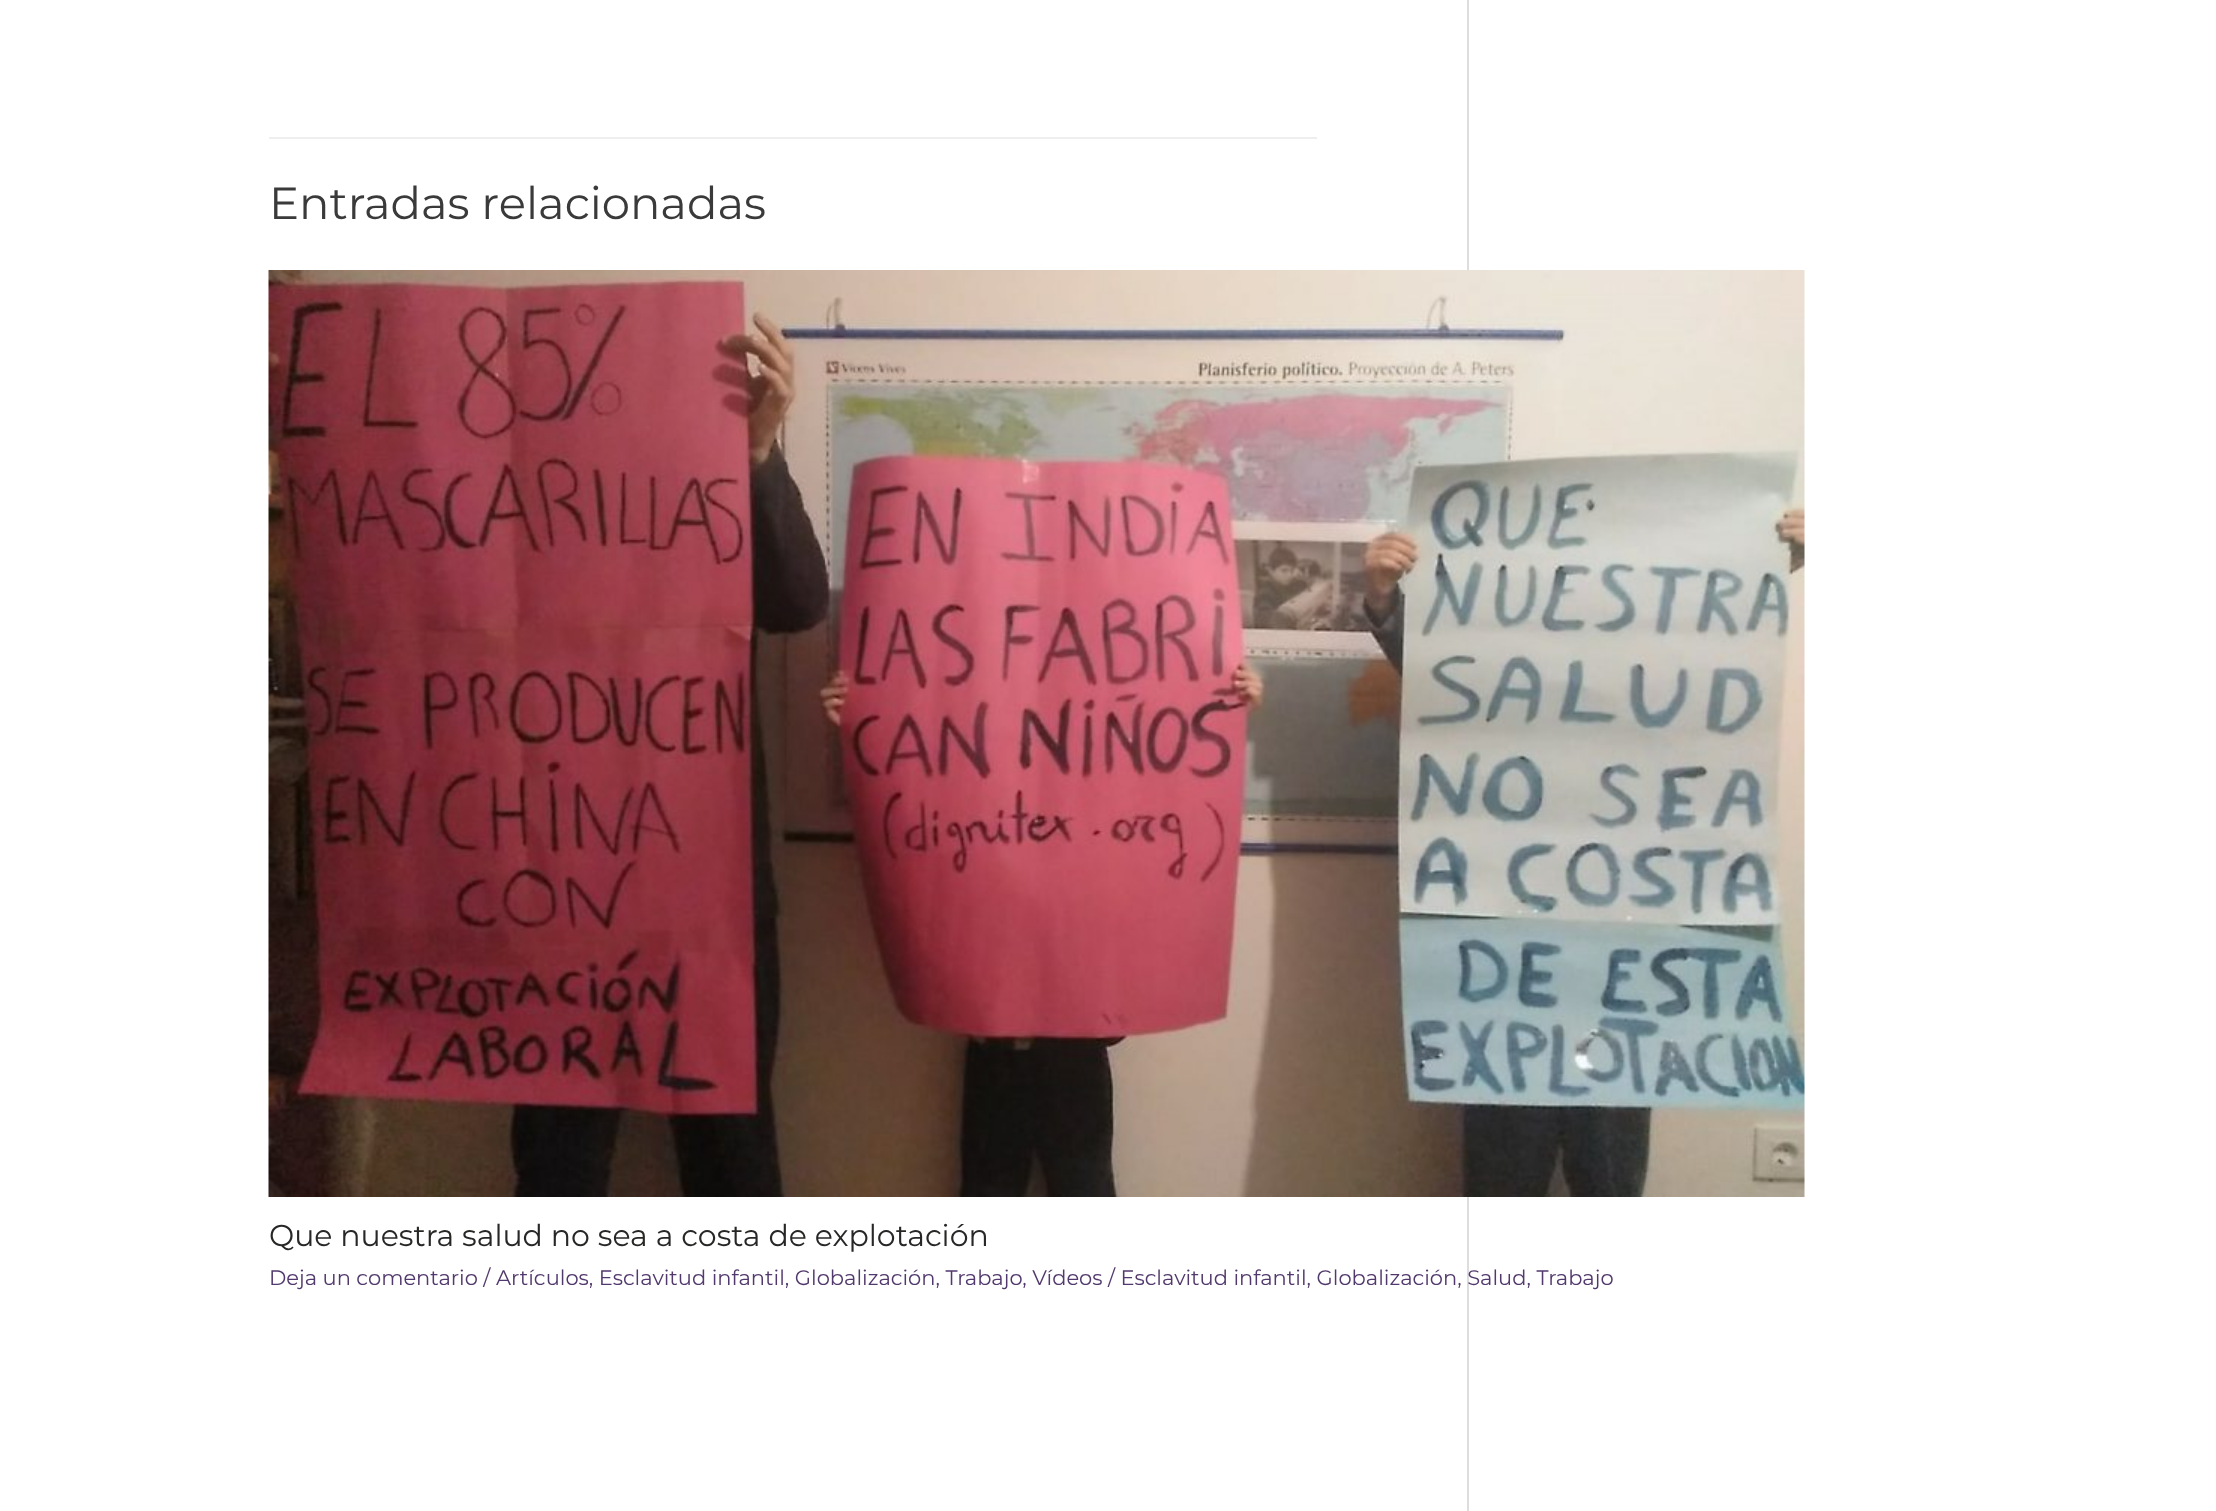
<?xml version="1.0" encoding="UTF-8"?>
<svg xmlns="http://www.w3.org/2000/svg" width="2216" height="1511">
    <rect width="100%" height="100%" fill="#FFFFFF"/>
    <rect x="1467" y="0" width="2" height="1511" fill="#DDDDDD"/>
    <rect x="269" y="137" width="1048" height="2" fill="#EEEEEE"/>
    <text x="269" y="219" font-family="Montserrat" font-size="45" font-weight="100" fill="#3A3A3A">Entradas relacionadas</text>
    <image x="268" y="270" width="1537" height="927" href="img_01.png"/>
    <text x="269" y="1246" font-family="Montserrat" font-size="30" font-weight="100" fill="#272826">Que nuestra salud no sea a costa de explotación</text>
    <text x="269" y="1285" font-family="Montserrat" font-size="21" font-weight="100" fill="#52396D">Deja un comentario / Artículos, Esclavitud infantil, Globalización, Trabajo, Vídeos / Esclavitud infantil, Globalización, Salud, Trabajo</text>
</svg>
